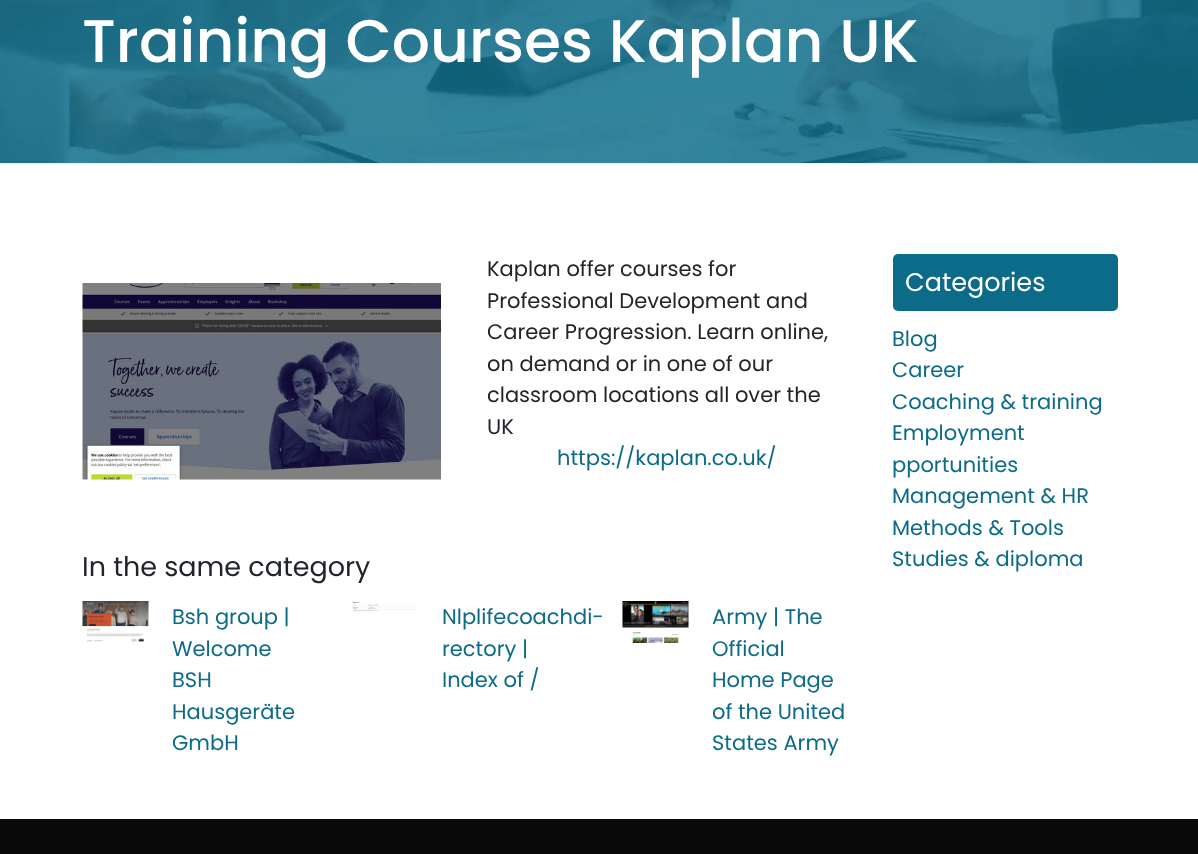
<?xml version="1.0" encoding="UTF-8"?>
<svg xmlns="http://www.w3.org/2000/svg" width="1198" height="854">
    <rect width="100%" height="100%" fill="#FFFFFF"/>
    <rect x="0" y="163" width="1198" height="1" fill="#EEEEEE"/>
    <image x="0" y="0" width="1198" height="163" href="img_01.png"/>
    <text x="82" y="62" font-family="Poppins" font-size="60" font-weight="500" fill="#FFFFFF">Training Courses Kaplan UK</text>
    <image x="82" y="283" width="359" height="197" href="img_02.png"/>
    <text font-family="Poppins" font-size="21" fill="#212529">
        <tspan x="487" y="276">Kaplan offer courses for</tspan>
        <tspan x="487" y="308">Professional Development and</tspan>
        <tspan x="487" y="339">Career Progression. Learn online,</tspan>
        <tspan x="487" y="371">on demand or in one of our</tspan>
        <tspan x="487" y="402">classroom locations all over the</tspan>
        <tspan x="487" y="434">UK</tspan>
    </text>
    <text x="557" y="465" font-family="Poppins" font-size="21" fill="#0C6B88">https://kaplan.co.uk/</text>
    <text x="82" y="576" font-family="Poppins" font-size="27" fill="#212529">In the same category</text>
    <image x="82" y="601" width="67" height="42" href="img_03.png"/>
    <text font-family="Poppins" font-size="21" fill="#0C6B88">
        <tspan x="172" y="624">Bsh group |</tspan>
        <tspan x="172" y="656">Welcome</tspan>
        <tspan x="172" y="687">BSH</tspan>
        <tspan x="172" y="719">Hausgeräte</tspan>
        <tspan x="172" y="750">GmbH</tspan>
    </text>
    <image x="352" y="601" width="66" height="11" href="img_04.png"/>
    <text font-family="Poppins" font-size="21" fill="#0C6B88">
        <tspan x="442" y="624">Nlplifecoachdi-</tspan>
        <tspan x="442" y="656">rectory |</tspan>
        <tspan x="442" y="687">Index of /</tspan>
    </text>
    <image x="622" y="601" width="67" height="42" href="img_05.png"/>
    <text font-family="Poppins" font-size="21" fill="#0C6B88">
        <tspan x="712" y="624">Army | The</tspan>
        <tspan x="712" y="656">Official</tspan>
        <tspan x="712" y="687">Home Page</tspan>
        <tspan x="712" y="719">of the United</tspan>
        <tspan x="712" y="750">States Army</tspan>
    </text>
    <rect x="893" y="254" width="225" height="57" rx="5" fill="#0C6B88"/>
    <text x="905" y="291" font-family="Poppins" font-size="25.5" fill="#FFFFFF">Categories</text>
    <text font-family="Poppins" font-size="21" fill="#0C6B88">
        <tspan x="892" y="346">Blog</tspan>
        <tspan x="892" y="377">Career</tspan>
        <tspan x="892" y="409">Coaching &amp; training</tspan>
        <tspan x="892" y="440">Employment</tspan>
        <tspan x="892" y="472">pportunities</tspan>
        <tspan x="892" y="503">Management &amp; HR</tspan>
        <tspan x="892" y="535">Methods &amp; Tools</tspan>
        <tspan x="892" y="566">Studies &amp; diploma</tspan>
    </text>
    <rect x="0" y="819" width="1198" height="35" fill="#0A0A0A"/>
</svg>
